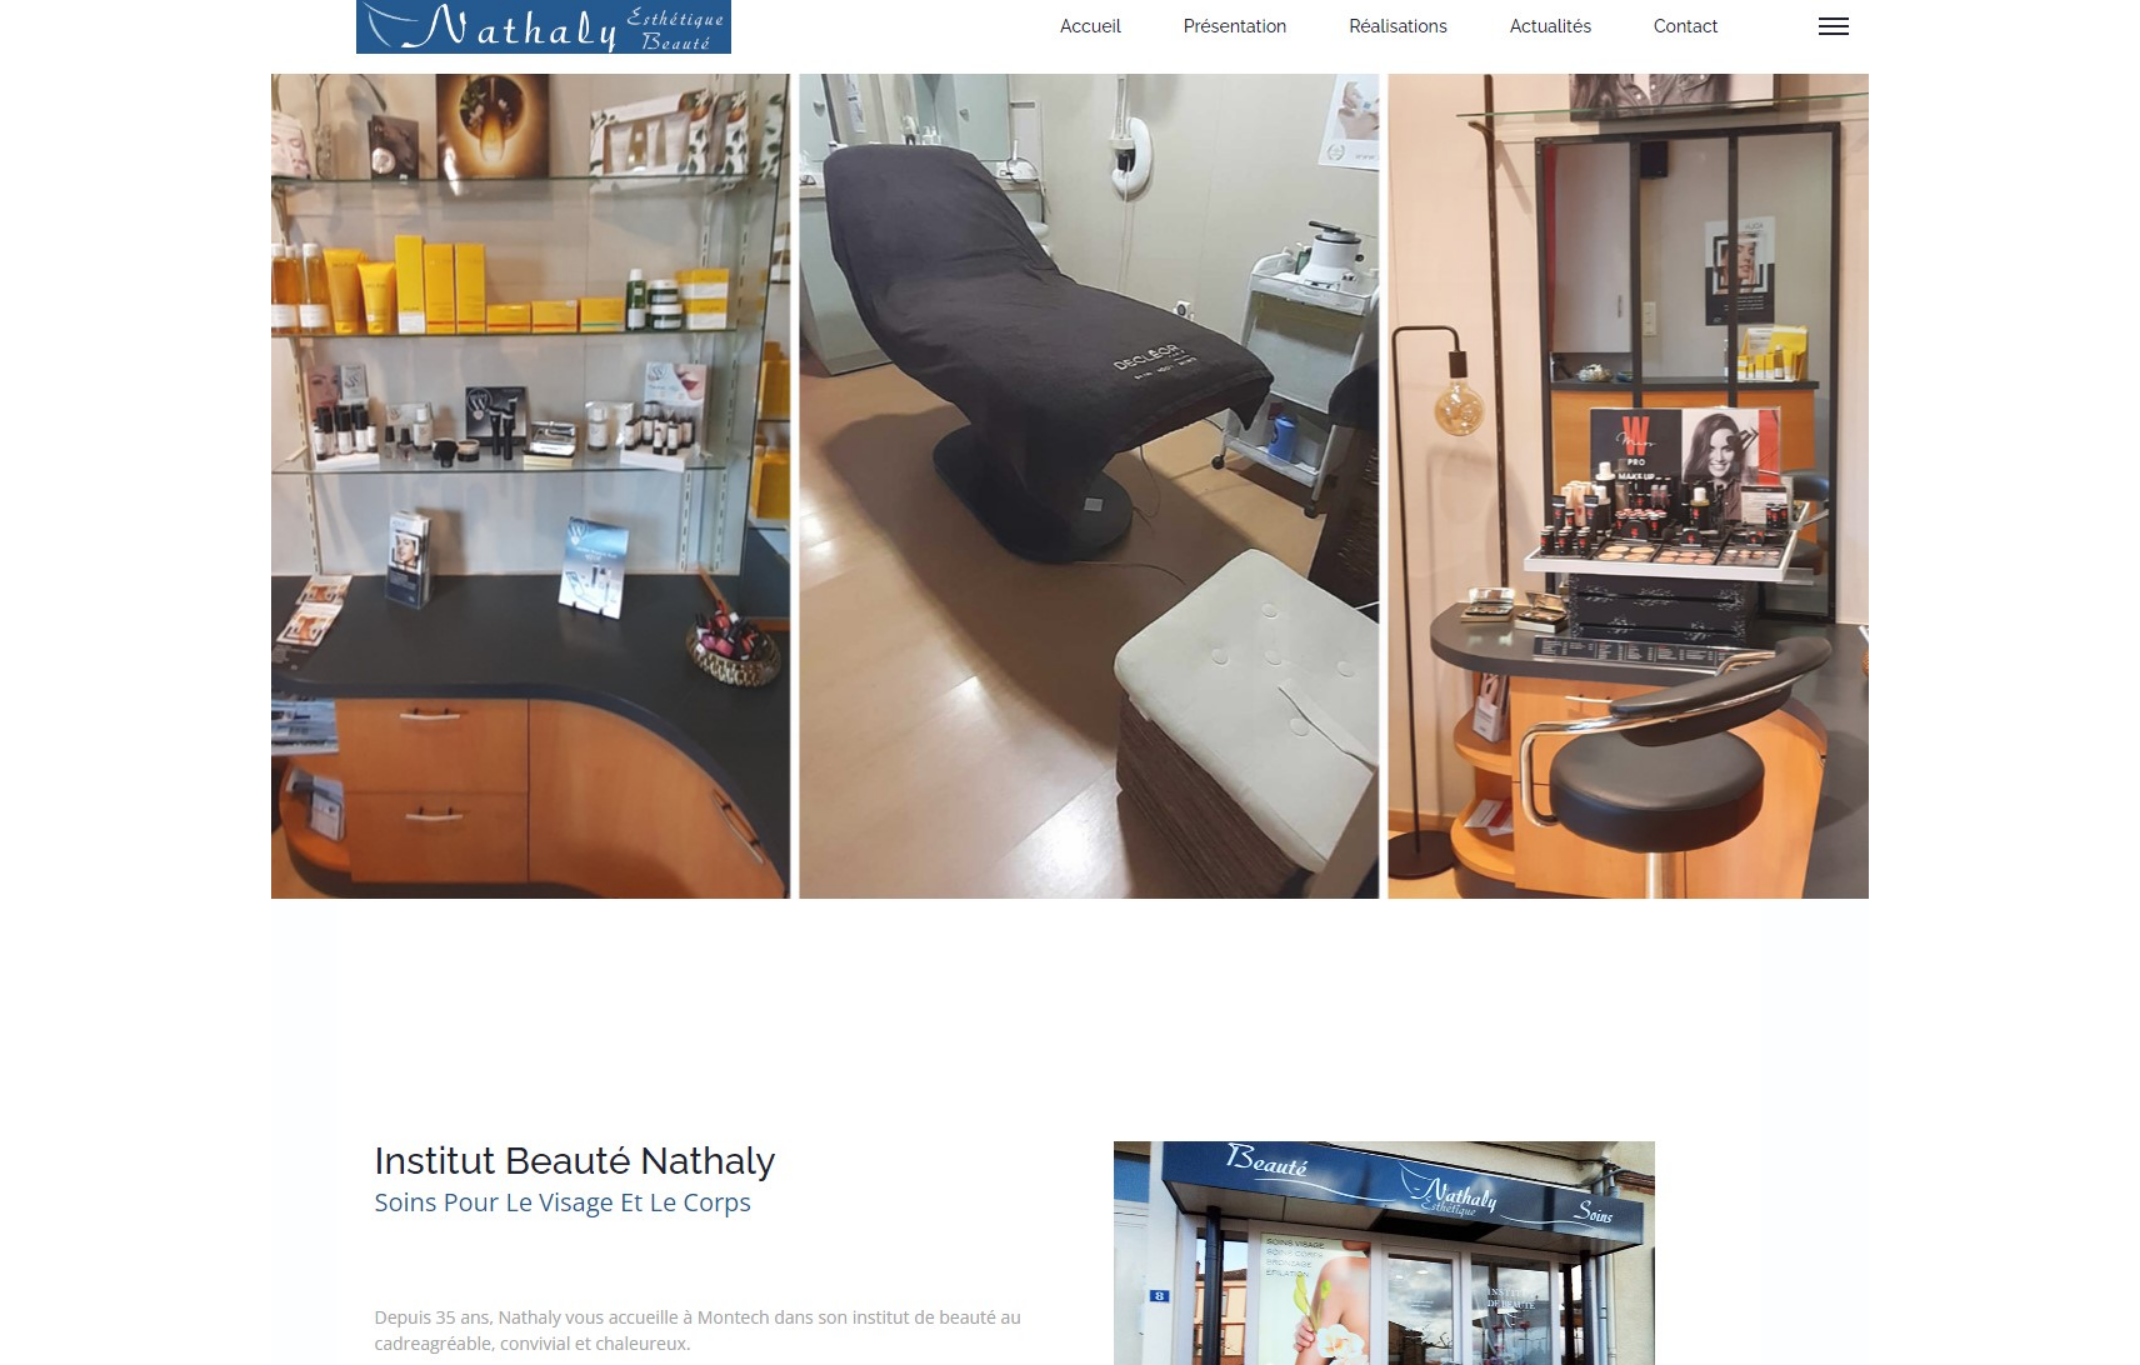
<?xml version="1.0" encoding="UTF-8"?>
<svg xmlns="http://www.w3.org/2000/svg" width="2140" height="1365">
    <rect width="100%" height="100%" fill="#FFFFFF"/>
    <image x="271" y="0" width="1598" height="1365" href="img_01.png"/>
</svg>
